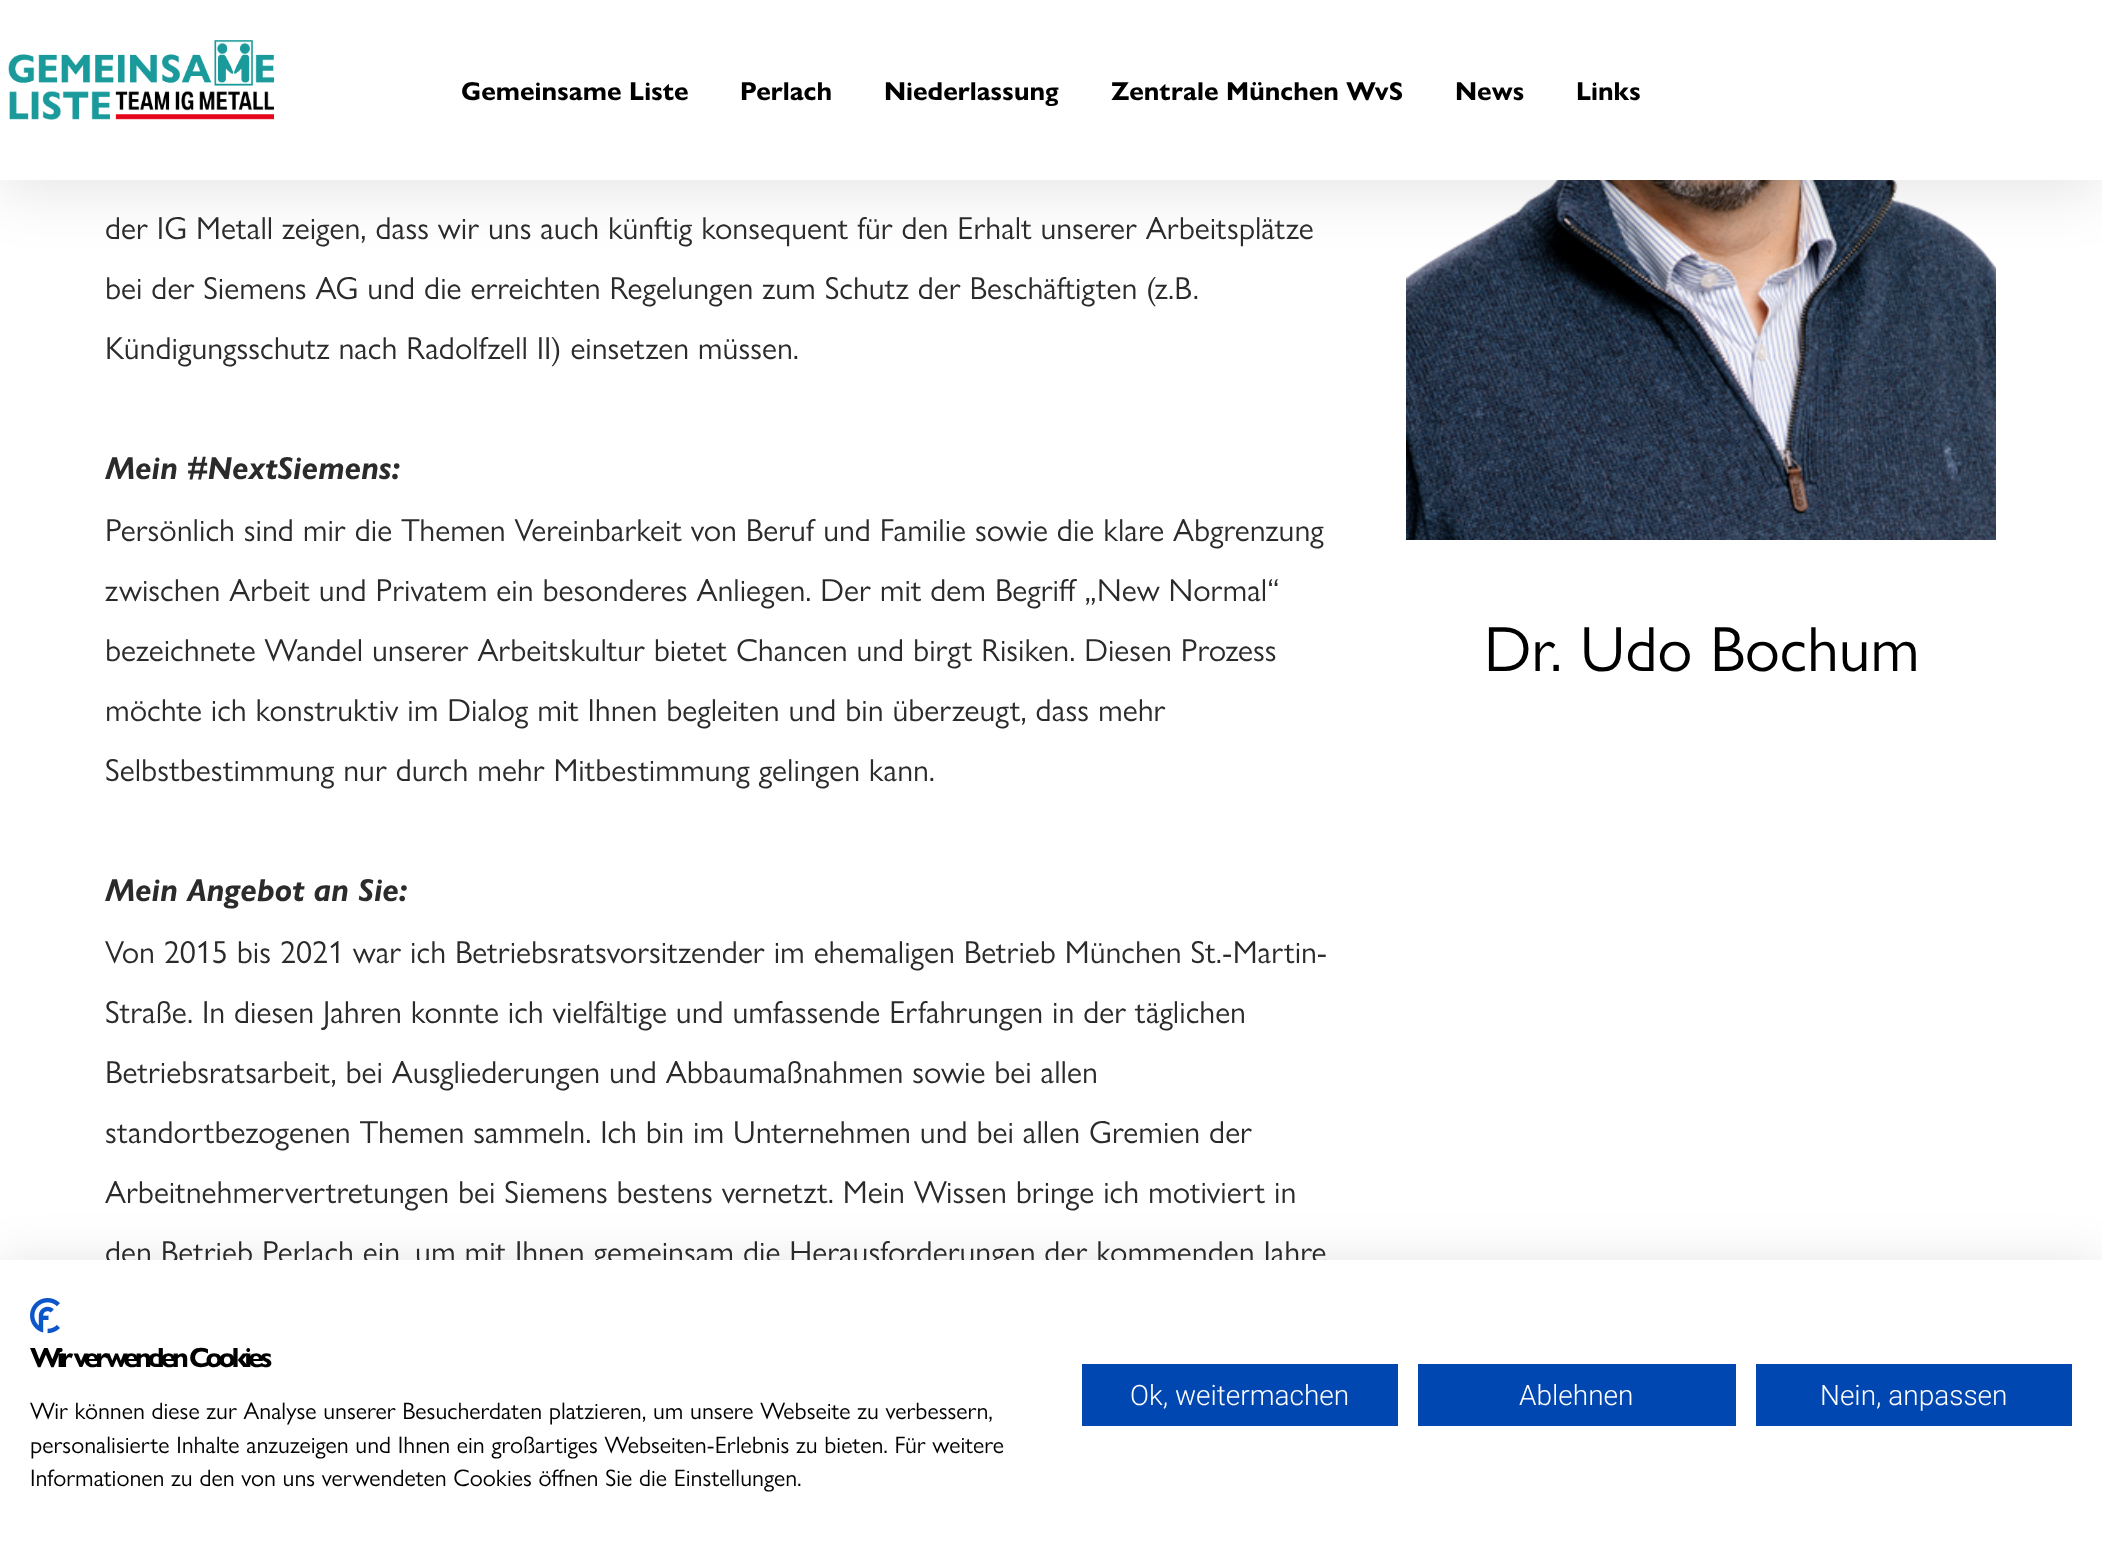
<?xml version="1.0" encoding="UTF-8"?>
<svg xmlns="http://www.w3.org/2000/svg" width="2102" height="1547">
    <defs>
        <filter id="blur1" x="-50%" y="-200%" width="200%" height="500%"><feGaussianBlur stdDeviation="30"/></filter>
        <filter id="blur2" x="-50%" y="-200%" width="200%" height="500%"><feGaussianBlur stdDeviation="24"/></filter>
    </defs>
    <rect width="100%" height="100%" fill="#FFFFFF"/>
    <image x="1406" y="180" width="590" height="360" href="img_02.png"/>
    <rect x="0" y="12" width="2102" height="180" fill="#000000" fill-opacity="0.1" filter="url(#blur1)"/>
    <rect x="0" y="0" width="2102" height="180" fill="#FFFFFF"/>
    <image x="8" y="40" width="266" height="80" href="img_01.png"/>
    <text x="461" y="100" font-family="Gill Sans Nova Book" font-size="26" font-weight="700" fill="#000000">Gemeinsame Liste</text>
    <text x="740" y="100" font-family="Gill Sans Nova Book" font-size="26" font-weight="700" fill="#000000">Perlach</text>
    <text x="884" y="100" font-family="Gill Sans Nova Book" font-size="26" font-weight="700" fill="#000000">Niederlassung</text>
    <text x="1111" y="100" font-family="Gill Sans Nova Book" font-size="26" font-weight="700" fill="#000000">Zentrale München WvS</text>
    <text x="1455" y="100" font-family="Gill Sans Nova Book" font-size="26" font-weight="700" fill="#000000">News</text>
    <text x="1576" y="100" font-family="Gill Sans Nova Book" font-size="26" font-weight="700" fill="#000000">Links</text>
    <text font-family="Gill Sans Nova Book" font-size="32" fill="#2B2B2B">
        <tspan x="105" y="239">der IG Metall zeigen, dass wir uns auch künftig konsequent für den Erhalt unserer Arbeitsplätze</tspan>
        <tspan x="105" y="299">bei der Siemens AG und die erreichten Regelungen zum Schutz der Beschäftigten (z.B.</tspan>
        <tspan x="105" y="359">Kündigungsschutz nach Radolfzell II) einsetzen müssen.</tspan>
    </text>
    <text x="105" y="479" font-family="Gill Sans Nova Book" font-size="32" font-weight="700" font-style="italic" fill="#2B2B2B">Mein #NextSiemens:</text>
    <text font-family="Gill Sans Nova Book" font-size="32" fill="#2B2B2B">
        <tspan x="105" y="541">Persönlich sind mir die Themen Vereinbarkeit von Beruf und Familie sowie die klare Abgrenzung</tspan>
        <tspan x="105" y="601">zwischen Arbeit und Privatem ein besonderes Anliegen. Der mit dem Begriff „New Normal“</tspan>
        <tspan x="105" y="661">bezeichnete Wandel unserer Arbeitskultur bietet Chancen und birgt Risiken. Diesen Prozess</tspan>
        <tspan x="105" y="721">möchte ich konstruktiv im Dialog mit Ihnen begleiten und bin überzeugt, dass mehr</tspan>
        <tspan x="105" y="781">Selbstbestimmung nur durch mehr Mitbestimmung gelingen kann.</tspan>
    </text>
    <text x="105" y="901" font-family="Gill Sans Nova Book" font-size="32" font-weight="700" font-style="italic" fill="#2B2B2B">Mein Angebot an Sie:</text>
    <text font-family="Gill Sans Nova Book" font-size="32" fill="#2B2B2B">
        <tspan x="105" y="963">Von 2015 bis 2021 war ich Betriebsratsvorsitzender im ehemaligen Betrieb München St.-Martin-</tspan>
        <tspan x="105" y="1023">Straße. In diesen Jahren konnte ich vielfältige und umfassende Erfahrungen in der täglichen</tspan>
        <tspan x="105" y="1083">Betriebsratsarbeit, bei Ausgliederungen und Abbaumaßnahmen sowie bei allen</tspan>
        <tspan x="105" y="1143">standortbezogenen Themen sammeln. Ich bin im Unternehmen und bei allen Gremien der</tspan>
        <tspan x="105" y="1203">Arbeitnehmervertretungen bei Siemens bestens vernetzt. Mein Wissen bringe ich motiviert in</tspan>
        <tspan x="105" y="1263">den Betrieb Perlach ein, um mit Ihnen gemeinsam die Herausforderungen der kommenden Jahre</tspan>
    </text>
    <text x="1484" y="671" font-family="Gill Sans Nova Book" font-size="64" fill="#000000">Dr. Udo Bochum</text>
    <rect x="0" y="1260" width="2102" height="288" fill="#000000" fill-opacity="0.1" filter="url(#blur2)"/>
    <rect x="0" y="1260" width="2102" height="287" fill="#FFFFFF"/>
    <image x="30" y="1298" width="30" height="36" href="img_03.png"/>
    <text x="30" y="1367" font-family="Gill Sans Nova Book" font-size="28" font-weight="700" letter-spacing="-4" fill="#000000">Wir verwenden Cookies</text>
    <text font-family="Gill Sans Nova Book" font-size="24" fill="#000000">
        <tspan x="30" y="1419">Wir können diese zur Analyse unserer Besucherdaten platzieren, um unsere Webseite zu verbessern,</tspan>
        <tspan x="30" y="1453">personalisierte Inhalte anzuzeigen und Ihnen ein großartiges Webseiten-Erlebnis zu bieten. Für weitere</tspan>
        <tspan x="30" y="1486">Informationen zu den von uns verwendeten Cookies öffnen Sie die Einstellungen.</tspan>
    </text>
    <rect x="1082" y="1364" width="316" height="62" fill="#0047B2"/>
    <text x="1130" y="1405" font-family="Roboto" font-size="28" font-weight="300" fill="#FFFFFF">Ok, weitermachen</text>
    <rect x="1418" y="1364" width="318" height="62" fill="#0047B2"/>
    <text x="1519" y="1405" font-family="Roboto" font-size="28" font-weight="300" fill="#FFFFFF">Ablehnen</text>
    <rect x="1756" y="1364" width="316" height="62" fill="#0047B2"/>
    <text x="1820" y="1405" font-family="Roboto" font-size="28" font-weight="300" fill="#FFFFFF">Nein, anpassen</text>
</svg>
